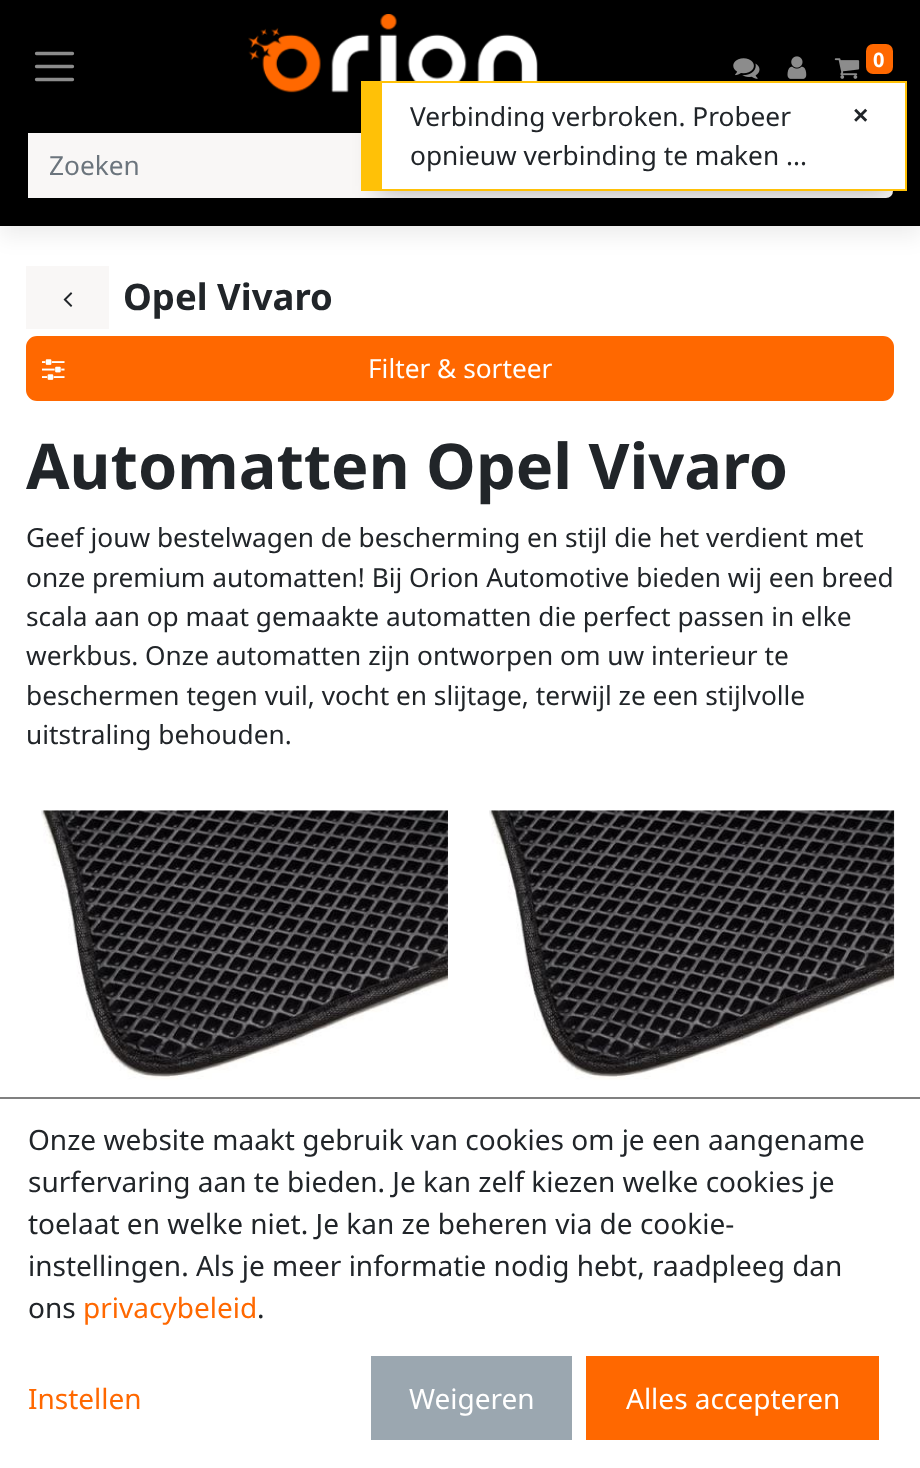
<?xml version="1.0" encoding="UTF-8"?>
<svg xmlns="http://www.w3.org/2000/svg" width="920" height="1468">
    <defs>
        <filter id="blur1" x="-50%" y="-200%" width="200%" height="500%"><feGaussianBlur stdDeviation="10.5"/></filter>
        <filter id="blur2" x="-50%" y="-200%" width="200%" height="500%"><feGaussianBlur stdDeviation="12"/></filter>
    </defs>
    <rect width="100%" height="100%" fill="#FFFFFF"/>
    <rect x="26" y="266" width="83" height="63" fill="#F9F7F6"/>
    <rect x="0" y="11" width="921" height="225" fill="#000000" fill-opacity="0.07" filter="url(#blur1)"/>
    <rect x="0" y="0" width="920" height="226" fill="#000000"/>
    <path d="M 36.5 53.5 H 72.5 M 36.5 66.5 H 72.5 M 36.5 79.5 H 72.5" fill="none" stroke="#8C8C8C" stroke-width="3.3" stroke-linecap="round"/>
    <image x="248" y="14" width="290" height="79" href="img_01.png"/>
    <image x="733" y="58" width="27" height="21" href="img_02.png"/>
    <image x="787" y="56" width="20" height="23" href="img_03.png"/>
    <image x="834" y="58" width="26" height="21" href="img_04.png"/>
    <rect x="866" y="44" width="27" height="30" rx="7" fill="#FF6800"/>
    <text x="873" y="67" font-family="Noto Sans" font-size="20" font-weight="700" fill="#FFFFFF">0</text>
    <rect x="28" y="133" width="765" height="65" fill="#F9F7F6"/>
    <text x="49" y="175" font-family="Noto Sans" font-size="26.25" fill="#6C757D">Zoeken</text>
    <path d="M 794 134 H 886 C 889.5 134 892 136.5 892 140 V 191 C 892 194.5 889.5 197 886 197 H 794 Z" fill="#F9F7F6" stroke="#F9F7F6" stroke-width="2"/>
    <image x="63" y="292" width="10" height="15" href="img_05.png"/>
    <text x="123" y="310" font-family="Noto Sans" font-size="36.5" font-weight="700" fill="#212529">Opel Vivaro</text>
    <rect x="27" y="337" width="866" height="63" rx="10" fill="#FF6800" stroke="#FF6800" stroke-width="2"/>
    <image x="42" y="359" width="23" height="21" href="img_06.png"/>
    <text x="368" y="378" font-family="Noto Sans" font-size="26.25" fill="#FFFFFF">Filter &amp; sorteer</text>
    <text x="26" y="489" font-family="Noto Sans" font-size="63" font-weight="700" fill="#212529">Automatten Opel Vivaro</text>
    <text font-family="Noto Sans" font-size="26.25" fill="#212529">
        <tspan x="26" y="547">Geef jouw bestelwagen de bescherming en stijl die het verdient met</tspan>
        <tspan x="26" y="587">onze premium automatten! Bij Orion Automotive bieden wij een breed</tspan>
        <tspan x="26" y="626">scala aan op maat gemaakte automatten die perfect passen in elke</tspan>
        <tspan x="26" y="665">werkbus. Onze automatten zijn ontworpen om uw interieur te</tspan>
        <tspan x="26" y="705">beschermen tegen vuil, vocht en slijtage, terwijl ze een stijlvolle</tspan>
        <tspan x="26" y="744">uitstraling behouden.</tspan>
    </text>
    <image x="41" y="810" width="407" height="287" href="img_07.png"/>
    <image x="489" y="810" width="406" height="287" href="img_08.png"/>
    <rect x="378" y="119" width="511" height="75" fill="#000000" fill-opacity="0.25" filter="url(#blur2)"/>
    <rect x="382" y="83" width="523" height="106" fill="#FFFFFF"/>
    <rect x="382" y="81" width="525" height="2" fill="#FFC107"/>
    <rect x="905" y="81" width="2" height="110" fill="#FFC107"/>
    <rect x="382" y="189" width="525" height="2" fill="#FFC107"/>
    <rect x="361" y="81" width="21" height="110" fill="#FFC107"/>
    <text font-family="Noto Sans" font-size="26.25" fill="#212529">
        <tspan x="410" y="126">Verbinding verbroken. Probeer</tspan>
        <tspan x="410" y="165">opnieuw verbinding te maken ...</tspan>
    </text>
    <text x="853" y="124" font-family="Liberation Sans" font-size="26.25" font-weight="700" fill="#212529">×</text>
    <rect x="0" y="1097" width="920" height="2" fill="#808080"/>
    <text font-family="Noto Sans" font-size="28" fill="#212529">
        <tspan x="28" y="1150">Onze website maakt gebruik van cookies om je een aangename</tspan>
        <tspan x="28" y="1192">surfervaring aan te bieden. Je kan zelf kiezen welke cookies je</tspan>
        <tspan x="28" y="1234">toelaat en welke niet. Je kan ze beheren via de cookie-</tspan>
        <tspan x="28" y="1276">instellingen. Als je meer informatie nodig hebt, raadpleeg dan</tspan>
        <tspan x="28" y="1318">ons</tspan>
    </text>
    <text x="83" y="1318" font-family="Noto Sans" font-size="28" fill="#FF6800">privacybeleid</text>
    <text x="257" y="1318" font-family="Noto Sans" font-size="28" fill="#212529">.</text>
    <text x="28" y="1409" font-family="Noto Sans" font-size="28" fill="#FF6800">Instellen</text>
    <rect x="371" y="1356" width="201" height="84" fill="#9BA7B0"/>
    <text x="409" y="1409" font-family="Noto Sans" font-size="28" fill="#FFFFFF">Weigeren</text>
    <rect x="586" y="1356" width="293" height="84" fill="#FF6800"/>
    <text x="626" y="1409" font-family="Noto Sans" font-size="28" fill="#FFFFFF">Alles accepteren</text>
</svg>
